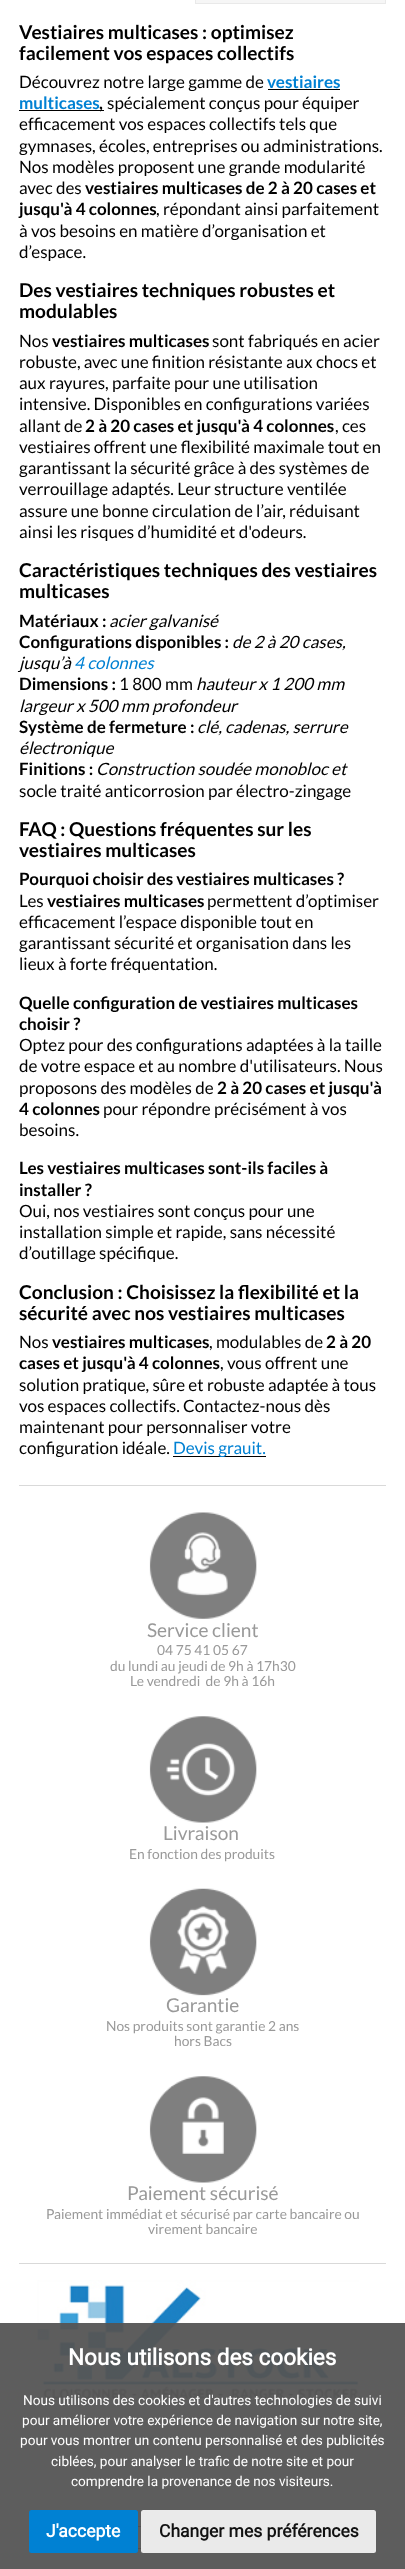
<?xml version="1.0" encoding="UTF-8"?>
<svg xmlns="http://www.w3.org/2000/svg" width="405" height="2569">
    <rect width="100%" height="100%" fill="#FFFFFF"/>
    <rect x="195.5" y="-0.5" width="190" height="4" fill="#F6F6F6" stroke="#E9E9E9"/>
    <text font-family="Lato" font-size="19.1" font-weight="700" fill="#000000">
        <tspan x="19" y="39">Vestiaires multicases : optimisez</tspan>
        <tspan x="19" y="60">facilement vos espaces collectifs</tspan>
    </text>
    <text x="19" y="88" font-family="Lato" font-size="17" fill="#000000">Découvrez notre large gamme de</text>
    <text x="267" y="88" font-family="Lato" font-size="17" font-weight="700" fill="#0081D3">vestiaires</text>
    <rect x="268" y="89" width="72" height="1" fill="#000000"/>
    <text x="19" y="109" font-family="Lato" font-size="17" font-weight="700" fill="#0081D3">multicases</text>
    <rect x="19" y="110" width="85" height="1" fill="#000000"/>
    <text x="99" y="109" font-family="Lato" font-size="17" font-weight="700" fill="#000000">,</text>
    <text x="107" y="109" font-family="Lato" font-size="17" fill="#000000">spécialement conçus pour équiper</text>
    <text font-family="Lato" font-size="17" fill="#000000">
        <tspan x="19" y="130">efficacement vos espaces collectifs tels que</tspan>
        <tspan x="19" y="152">gymnases, écoles, entreprises ou administrations.</tspan>
        <tspan x="19" y="173">Nos modèles proposent une grande modularité</tspan>
        <tspan x="19" y="194">avec des</tspan>
    </text>
    <text x="85" y="194" font-family="Lato" font-size="17" font-weight="700" fill="#000000">vestiaires multicases de 2 à 20 cases et</text>
    <text x="19" y="215" font-family="Lato" font-size="17" font-weight="700" fill="#000000">jusqu'à 4 colonnes</text>
    <text x="156" y="215" font-family="Lato" font-size="17" fill="#000000">, répondant ainsi parfaitement</text>
    <text font-family="Lato" font-size="17" fill="#000000">
        <tspan x="19" y="237">à vos besoins en matière d’organisation et</tspan>
        <tspan x="19" y="258">d’espace.</tspan>
    </text>
    <text font-family="Lato" font-size="19.1" font-weight="700" fill="#000000">
        <tspan x="19" y="297">Des vestiaires techniques robustes et</tspan>
        <tspan x="19" y="318">modulables</tspan>
    </text>
    <text x="19" y="347" font-family="Lato" font-size="17" fill="#000000">Nos</text>
    <text x="52" y="347" font-family="Lato" font-size="17" font-weight="700" fill="#000000">vestiaires multicases</text>
    <text x="212" y="347" font-family="Lato" font-size="17" fill="#000000">sont fabriqués en acier</text>
    <text font-family="Lato" font-size="17" fill="#000000">
        <tspan x="19" y="368">robuste, avec une finition résistante aux chocs et</tspan>
        <tspan x="19" y="389">aux rayures, parfaite pour une utilisation</tspan>
        <tspan x="19" y="410">intensive. Disponibles en configurations variées</tspan>
        <tspan x="19" y="432">allant de</tspan>
    </text>
    <text x="85" y="432" font-family="Lato" font-size="17" font-weight="700" fill="#000000">2 à 20 cases et jusqu'à 4 colonnes</text>
    <text x="335" y="432" font-family="Lato" font-size="17" fill="#000000">, ces</text>
    <text font-family="Lato" font-size="17" fill="#000000">
        <tspan x="19" y="453">vestiaires offrent une flexibilité maximale tout en</tspan>
        <tspan x="19" y="474">garantissant la sécurité grâce à des systèmes de</tspan>
        <tspan x="19" y="495">verrouillage adaptés. Leur structure ventilée</tspan>
        <tspan x="19" y="517">assure une bonne circulation de l’air, réduisant</tspan>
        <tspan x="19" y="538">ainsi les risques d’humidité et d'odeurs.</tspan>
    </text>
    <text font-family="Lato" font-size="19.1" font-weight="700" fill="#000000">
        <tspan x="19" y="577">Caractéristiques techniques des vestiaires</tspan>
        <tspan x="19" y="598">multicases</tspan>
    </text>
    <text x="19" y="627" font-family="Lato" font-size="17" font-weight="700" fill="#000000">Matériaux :</text>
    <text x="109" y="627" font-family="Lato" font-size="17" font-style="italic" fill="#000000">acier galvanisé</text>
    <text x="19" y="648" font-family="Lato" font-size="17" font-weight="700" fill="#000000">Configurations disponibles :</text>
    <text x="232" y="648" font-family="Lato" font-size="17" font-style="italic" fill="#000000">de 2 à 20 cases,</text>
    <text x="19" y="669" font-family="Lato" font-size="17" font-style="italic" fill="#000000">jusqu’à</text>
    <text x="74" y="669" font-family="Lato" font-size="17" font-style="italic" fill="#0081D3">4 colonnes</text>
    <text x="19" y="690" font-family="Lato" font-size="17" font-weight="700" fill="#000000">Dimensions :</text>
    <text x="119" y="690" font-family="Lato" font-size="17" fill="#000000">1 800 mm</text>
    <text x="196" y="690" font-family="Lato" font-size="17" font-style="italic" fill="#000000">hauteur x 1 200 mm</text>
    <text x="19" y="712" font-family="Lato" font-size="17" font-style="italic" fill="#000000">largeur x 500 mm profondeur</text>
    <text x="19" y="733" font-family="Lato" font-size="17" font-weight="700" fill="#000000">Système de fermeture :</text>
    <text x="197" y="733" font-family="Lato" font-size="17" font-style="italic" fill="#000000">clé, cadenas, serrure</text>
    <text x="19" y="754" font-family="Lato" font-size="17" font-style="italic" fill="#000000">électronique</text>
    <text x="19" y="775" font-family="Lato" font-size="17" font-weight="700" fill="#000000">Finitions :</text>
    <text x="96" y="775" font-family="Lato" font-size="17" font-style="italic" fill="#000000">Construction soudée monobloc et</text>
    <text x="19" y="797" font-family="Lato" font-size="17" fill="#000000">socle traité anticorrosion par électro-zingage</text>
    <text font-family="Lato" font-size="19.1" font-weight="700" fill="#000000">
        <tspan x="19" y="836">FAQ : Questions fréquentes sur les</tspan>
        <tspan x="19" y="857">vestiaires multicases</tspan>
    </text>
    <text x="19" y="885" font-family="Lato" font-size="17" font-weight="700" fill="#000000">Pourquoi choisir des vestiaires multicases ?</text>
    <text x="19" y="907" font-family="Lato" font-size="17" fill="#000000">Les</text>
    <text x="47" y="907" font-family="Lato" font-size="17" font-weight="700" fill="#000000">vestiaires multicases</text>
    <text x="207" y="907" font-family="Lato" font-size="17" fill="#000000">permettent d’optimiser</text>
    <text font-family="Lato" font-size="17" fill="#000000">
        <tspan x="19" y="928">efficacement l’espace disponible tout en</tspan>
        <tspan x="19" y="949">garantissant sécurité et organisation dans les</tspan>
        <tspan x="19" y="970">lieux à forte fréquentation.</tspan>
    </text>
    <text font-family="Lato" font-size="17" font-weight="700" fill="#000000">
        <tspan x="19" y="1009">Quelle configuration de vestiaires multicases</tspan>
        <tspan x="19" y="1030">choisir ?</tspan>
    </text>
    <text font-family="Lato" font-size="17" fill="#000000">
        <tspan x="19" y="1051">Optez pour des configurations adaptées à la taille</tspan>
        <tspan x="19" y="1072">de votre espace et au nombre d'utilisateurs. Nous</tspan>
        <tspan x="19" y="1094">proposons des modèles de</tspan>
    </text>
    <text x="217" y="1094" font-family="Lato" font-size="17" font-weight="700" fill="#000000">2 à 20 cases et jusqu'à</text>
    <text x="19" y="1115" font-family="Lato" font-size="17" font-weight="700" fill="#000000">4 colonnes</text>
    <text x="103" y="1115" font-family="Lato" font-size="17" fill="#000000">pour répondre précisément à vos</text>
    <text x="19" y="1136" font-family="Lato" font-size="17" fill="#000000">besoins.</text>
    <text font-family="Lato" font-size="17" font-weight="700" fill="#000000">
        <tspan x="19" y="1174">Les vestiaires multicases sont-ils faciles à</tspan>
        <tspan x="19" y="1196">installer ?</tspan>
    </text>
    <text font-family="Lato" font-size="17" fill="#000000">
        <tspan x="19" y="1217">Oui, nos vestiaires sont conçus pour une</tspan>
        <tspan x="19" y="1238">installation simple et rapide, sans nécessité</tspan>
        <tspan x="19" y="1259">d’outillage spécifique.</tspan>
    </text>
    <text font-family="Lato" font-size="19.1" font-weight="700" fill="#000000">
        <tspan x="19" y="1299">Conclusion : Choisissez la flexibilité et la</tspan>
        <tspan x="19" y="1320">sécurité avec nos vestiaires multicases</tspan>
    </text>
    <text x="19" y="1348" font-family="Lato" font-size="17" fill="#000000">Nos</text>
    <text x="52" y="1348" font-family="Lato" font-size="17" font-weight="700" fill="#000000">vestiaires multicases</text>
    <text x="209" y="1348" font-family="Lato" font-size="17" fill="#000000">, modulables de</text>
    <text x="326" y="1348" font-family="Lato" font-size="17" font-weight="700" fill="#000000">2 à 20</text>
    <text x="19" y="1369" font-family="Lato" font-size="17" font-weight="700" fill="#000000">cases et jusqu'à 4 colonnes</text>
    <text x="220" y="1369" font-family="Lato" font-size="17" fill="#000000">, vous offrent une</text>
    <text font-family="Lato" font-size="17" fill="#000000">
        <tspan x="19" y="1391">solution pratique, sûre et robuste adaptée à tous</tspan>
        <tspan x="19" y="1412">vos espaces collectifs. Contactez-nous dès</tspan>
        <tspan x="19" y="1433">maintenant pour personnaliser votre</tspan>
        <tspan x="19" y="1454">configuration idéale.</tspan>
    </text>
    <rect x="173" y="1456" width="93" height="1" fill="#000000"/>
    <text x="173" y="1454" font-family="Lato" font-size="17" fill="#0081D3">Devis grauit.</text>
    <rect x="19" y="1485" width="367" height="1" fill="#D9D9D9"/>
    <image x="149" y="1512" width="108" height="107" href="img_01.png"/>
    <text x="147" y="1637" font-family="Lato" font-size="19.1" fill="#999999">Service client</text>
    <text x="157" y="1655" font-family="Lato" font-size="13.8" fill="#999999">04 75 41 05 67</text>
    <text x="110" y="1671" font-family="Lato" font-size="13.8" fill="#999999">du lundi au jeudi de 9h à 17h30</text>
    <text x="130" y="1686" font-family="Lato" font-size="13.8" fill="#999999" xml:space="preserve">Le vendredi  de 9h à 16h</text>
    <image x="149" y="1716" width="108" height="107" href="img_02.png"/>
    <text x="163" y="1840" font-family="Lato" font-size="19.1" fill="#999999">Livraison</text>
    <text x="129" y="1859" font-family="Lato" font-size="13.8" fill="#999999">En fonction des produits</text>
    <image x="149" y="1888" width="108" height="108" href="img_03.png"/>
    <text x="166" y="2012" font-family="Lato" font-size="19.1" fill="#999999">Garantie</text>
    <text x="106" y="2031" font-family="Lato" font-size="13.8" fill="#999999">Nos produits sont garantie 2 ans</text>
    <text x="174" y="2046" font-family="Lato" font-size="13.8" fill="#999999">hors Bacs</text>
    <image x="149" y="2076" width="108" height="107" href="img_04.png"/>
    <text x="127" y="2200" font-family="Lato" font-size="19.1" fill="#999999">Paiement sécurisé</text>
    <text x="46" y="2219" font-family="Lato" font-size="13.8" fill="#999999">Paiement immédiat et sécurisé par carte bancaire ou</text>
    <text x="148" y="2234" font-family="Lato" font-size="13.8" fill="#999999">virement bancaire</text>
    <rect x="19" y="2263" width="367" height="1" fill="#D9D9D9"/>
    <image x="37" y="2280" width="322" height="120" href="img_05.png"/>
    <rect x="138" y="2526" width="3" height="1" fill="#000000"/>
    <rect x="138" y="2548" width="3" height="1" fill="#000000"/>
    <rect x="0" y="2323" width="405" height="246" fill="#545454" fill-opacity="0.95"/>
    <text x="68" y="2365" font-family="Roboto" font-size="22.5" font-weight="700" fill="#FFFFFF">Nous utilisons des cookies</text>
    <text x="23" y="2405" font-family="Roboto" font-size="13.6" fill="#FFFFFF">Nous utilisons des cookies et d'autres technologies de suivi</text>
    <text x="22" y="2425" font-family="Roboto" font-size="13.6" fill="#FFFFFF">pour améliorer votre expérience de navigation sur notre site,</text>
    <text x="20" y="2445" font-family="Roboto" font-size="13.6" fill="#FFFFFF">pour vous montrer un contenu personnalisé et des publicités</text>
    <text x="51" y="2466" font-family="Roboto" font-size="13.6" fill="#FFFFFF">ciblées, pour analyser le trafic de notre site et pour</text>
    <text x="71" y="2486" font-family="Roboto" font-size="13.6" fill="#FFFFFF">comprendre la provenance de nos visiteurs.</text>
    <rect x="29" y="2510" width="109" height="43" rx="2.5" fill="#0081D3"/>
    <text x="46" y="2537" font-family="Roboto" font-size="17.5" font-weight="700" fill="#FFFFFF">J'accepte</text>
    <rect x="141" y="2510" width="235" height="43" rx="2.5" fill="#EAEAEA"/>
    <text x="159" y="2537" font-family="Roboto" font-size="17.5" font-weight="700" fill="#111111">Changer mes préférences</text>
</svg>
